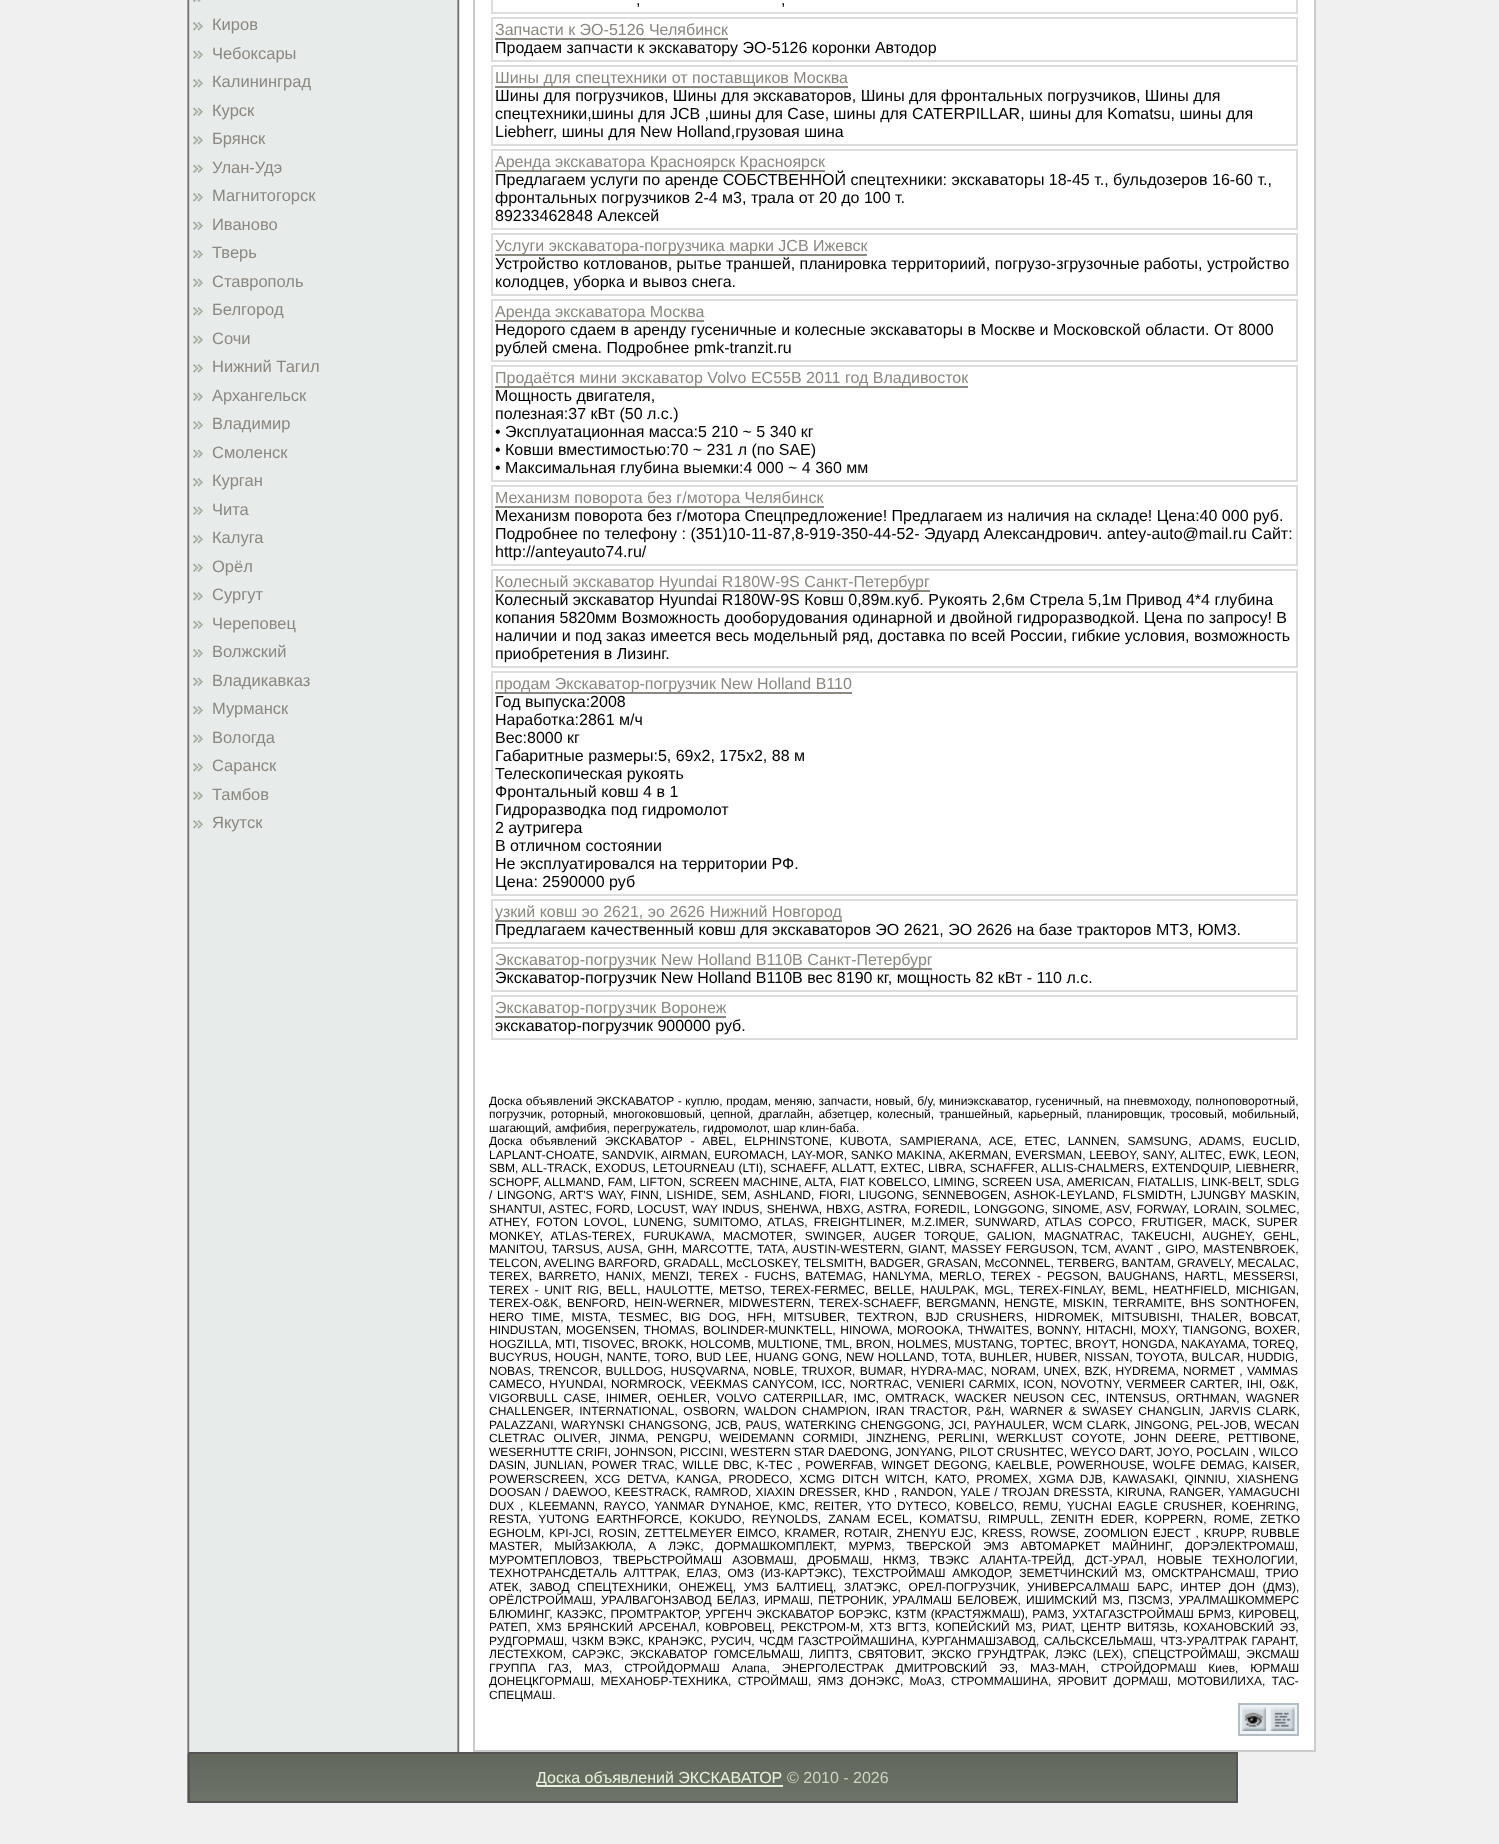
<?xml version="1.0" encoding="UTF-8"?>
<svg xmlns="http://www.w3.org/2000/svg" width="1499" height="1844">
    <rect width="100%" height="100%" fill="#F0F0F0"/>
    <image x="187" y="0" width="286" height="1803" href="img_01.png"/>
    <image x="193" y="0" width="9" height="2" href="img_02.png"/>
    <image x="193" y="22" width="10" height="9" href="img_03.png"/>
    <text x="212" y="30" font-family="Liberation Sans" font-size="16.5" fill="#8B8881">Киров</text>
    <image x="193" y="50" width="10" height="9" href="img_04.png"/>
    <text x="212" y="59" font-family="Liberation Sans" font-size="16.5" fill="#8B8881">Чебоксары</text>
    <image x="193" y="79" width="10" height="9" href="img_03.png"/>
    <text x="212" y="87" font-family="Liberation Sans" font-size="16.5" fill="#8B8881">Калининград</text>
    <image x="193" y="107" width="10" height="9" href="img_04.png"/>
    <text x="212" y="116" font-family="Liberation Sans" font-size="16.5" fill="#8B8881">Курск</text>
    <image x="193" y="136" width="10" height="9" href="img_03.png"/>
    <text x="212" y="144" font-family="Liberation Sans" font-size="16.5" fill="#8B8881">Брянск</text>
    <image x="193" y="164" width="10" height="9" href="img_04.png"/>
    <text x="212" y="173" font-family="Liberation Sans" font-size="16.5" fill="#8B8881">Улан-Удэ</text>
    <image x="193" y="193" width="10" height="9" href="img_03.png"/>
    <text x="212" y="201" font-family="Liberation Sans" font-size="16.5" fill="#8B8881">Магнитогорск</text>
    <image x="193" y="221" width="10" height="9" href="img_04.png"/>
    <text x="212" y="230" font-family="Liberation Sans" font-size="16.5" fill="#8B8881">Иваново</text>
    <image x="193" y="250" width="10" height="9" href="img_03.png"/>
    <text x="212" y="258" font-family="Liberation Sans" font-size="16.5" fill="#8B8881">Тверь</text>
    <image x="193" y="278" width="10" height="9" href="img_04.png"/>
    <text x="212" y="287" font-family="Liberation Sans" font-size="16.5" fill="#8B8881">Ставрополь</text>
    <image x="193" y="307" width="10" height="9" href="img_03.png"/>
    <text x="212" y="315" font-family="Liberation Sans" font-size="16.5" fill="#8B8881">Белгород</text>
    <image x="193" y="335" width="10" height="9" href="img_04.png"/>
    <text x="212" y="344" font-family="Liberation Sans" font-size="16.5" fill="#8B8881">Сочи</text>
    <image x="193" y="364" width="10" height="9" href="img_03.png"/>
    <text x="212" y="372" font-family="Liberation Sans" font-size="16.5" fill="#8B8881">Нижний Тагил</text>
    <image x="193" y="392" width="10" height="9" href="img_04.png"/>
    <text x="212" y="401" font-family="Liberation Sans" font-size="16.5" fill="#8B8881">Архангельск</text>
    <image x="193" y="421" width="10" height="9" href="img_03.png"/>
    <text x="212" y="429" font-family="Liberation Sans" font-size="16.5" fill="#8B8881">Владимир</text>
    <image x="193" y="449" width="10" height="9" href="img_04.png"/>
    <text x="212" y="458" font-family="Liberation Sans" font-size="16.5" fill="#8B8881">Смоленск</text>
    <image x="193" y="478" width="10" height="9" href="img_03.png"/>
    <text x="212" y="486" font-family="Liberation Sans" font-size="16.5" fill="#8B8881">Курган</text>
    <image x="193" y="506" width="10" height="9" href="img_04.png"/>
    <text x="212" y="515" font-family="Liberation Sans" font-size="16.5" fill="#8B8881">Чита</text>
    <image x="193" y="535" width="10" height="9" href="img_03.png"/>
    <text x="212" y="543" font-family="Liberation Sans" font-size="16.5" fill="#8B8881">Калуга</text>
    <image x="193" y="563" width="10" height="9" href="img_04.png"/>
    <text x="212" y="572" font-family="Liberation Sans" font-size="16.5" fill="#8B8881">Орёл</text>
    <image x="193" y="592" width="10" height="9" href="img_03.png"/>
    <text x="212" y="600" font-family="Liberation Sans" font-size="16.5" fill="#8B8881">Сургут</text>
    <image x="193" y="620" width="10" height="9" href="img_04.png"/>
    <text x="212" y="629" font-family="Liberation Sans" font-size="16.5" fill="#8B8881">Череповец</text>
    <image x="193" y="649" width="10" height="9" href="img_03.png"/>
    <text x="212" y="657" font-family="Liberation Sans" font-size="16.5" fill="#8B8881">Волжский</text>
    <image x="193" y="677" width="10" height="9" href="img_04.png"/>
    <text x="212" y="686" font-family="Liberation Sans" font-size="16.5" fill="#8B8881">Владикавказ</text>
    <image x="193" y="706" width="10" height="9" href="img_03.png"/>
    <text x="212" y="714" font-family="Liberation Sans" font-size="16.5" fill="#8B8881">Мурманск</text>
    <image x="193" y="734" width="10" height="9" href="img_04.png"/>
    <text x="212" y="743" font-family="Liberation Sans" font-size="16.5" fill="#8B8881">Вологда</text>
    <image x="193" y="763" width="10" height="9" href="img_03.png"/>
    <text x="212" y="771" font-family="Liberation Sans" font-size="16.5" fill="#8B8881">Саранск</text>
    <image x="193" y="791" width="10" height="9" href="img_04.png"/>
    <text x="212" y="800" font-family="Liberation Sans" font-size="16.5" fill="#8B8881">Тамбов</text>
    <image x="193" y="820" width="10" height="9" href="img_03.png"/>
    <text x="212" y="828" font-family="Liberation Sans" font-size="16.5" fill="#8B8881">Якутск</text>
    <rect x="474" y="-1" width="841" height="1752" fill="#FFFFFF" stroke="#CCCCCC" stroke-width="2"/>
    <rect x="492" y="-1" width="805" height="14" fill="none" stroke="#DCDCDC" stroke-width="2"/>
    <text x="636" y="5" font-family="Liberation Sans" font-size="16" fill="#000000">,</text>
    <text x="781" y="5" font-family="Liberation Sans" font-size="16" fill="#000000">,</text>
    <rect x="492" y="18" width="805" height="43" fill="none" stroke="#DCDCDC" stroke-width="2"/>
    <text x="495" y="35" font-family="Liberation Sans" font-size="16" fill="#8B8881">Запчасти к ЭО-5126 Челябинск</text>
    <rect x="495" y="38" width="233" height="2" fill="#8B8881"/>
    <text x="495" y="53" font-family="Liberation Sans" font-size="16" fill="#000000">Продаем запчасти к экскаватору ЭО-5126 коронки Автодор</text>
    <rect x="492" y="66" width="805" height="79" fill="none" stroke="#DCDCDC" stroke-width="2"/>
    <rect x="495" y="86" width="353" height="2" fill="#8B8881"/>
    <text x="495" y="83" font-family="Liberation Sans" font-size="16" fill="#8B8881">Шины для спецтехники от поставщиков Москва</text>
    <text font-family="Liberation Sans" font-size="16" fill="#000000">
        <tspan x="495" y="101">Шины для погрузчиков, Шины для экскаваторов, Шины для фронтальных погрузчиков, Шины для</tspan>
        <tspan x="495" y="119">спецтехники,шины для JCB ,шины для Case, шины для CATERPILLAR, шины для Komatsu, шины для</tspan>
        <tspan x="495" y="137">Liebherr, шины для New Holland,грузовая шина</tspan>
    </text>
    <rect x="492" y="150" width="805" height="79" fill="none" stroke="#DCDCDC" stroke-width="2"/>
    <rect x="495" y="170" width="330" height="2" fill="#8B8881"/>
    <text x="495" y="167" font-family="Liberation Sans" font-size="16" fill="#8B8881">Аренда экскаватора Красноярск Красноярск</text>
    <text font-family="Liberation Sans" font-size="16" fill="#000000">
        <tspan x="495" y="185">Предлагаем услуги по аренде СОБСТВЕННОЙ спецтехники: экскаваторы 18-45 т., бульдозеров 16-60 т.,</tspan>
        <tspan x="495" y="203">фронтальных погрузчиков 2-4 м3, трала от 20 до 100 т.</tspan>
        <tspan x="495" y="221">89233462848 Алексей</tspan>
    </text>
    <rect x="492" y="234" width="805" height="61" fill="none" stroke="#DCDCDC" stroke-width="2"/>
    <rect x="495" y="254" width="372" height="2" fill="#8B8881"/>
    <text x="495" y="251" font-family="Liberation Sans" font-size="16" fill="#8B8881">Услуги экскаватора-погрузчика марки JCB Ижевск</text>
    <text font-family="Liberation Sans" font-size="16" fill="#000000">
        <tspan x="495" y="269">Устройство котлованов, рытье траншей, планировка территориий, погрузо-згрузочные работы, устройство</tspan>
        <tspan x="495" y="287">колодцев, уборка и вывоз снега.</tspan>
    </text>
    <rect x="492" y="300" width="805" height="61" fill="none" stroke="#DCDCDC" stroke-width="2"/>
    <rect x="495" y="320" width="209" height="2" fill="#8B8881"/>
    <text x="495" y="317" font-family="Liberation Sans" font-size="16" fill="#8B8881">Аренда экскаватора Москва</text>
    <text font-family="Liberation Sans" font-size="16" fill="#000000">
        <tspan x="495" y="335">Недорого сдаем в аренду гусеничные и колесные экскаваторы в Москве и Московской области. От 8000</tspan>
        <tspan x="495" y="353">рублей смена. Подробнее pmk-tranzit.ru</tspan>
    </text>
    <rect x="492" y="366" width="805" height="115" fill="none" stroke="#DCDCDC" stroke-width="2"/>
    <rect x="495" y="386" width="473" height="2" fill="#8B8881"/>
    <text x="495" y="383" font-family="Liberation Sans" font-size="16" fill="#8B8881">Продаётся мини экскаватор Volvo EC55B 2011 год Владивосток</text>
    <text font-family="Liberation Sans" font-size="16" fill="#000000">
        <tspan x="495" y="401">Мощность двигателя,</tspan>
        <tspan x="495" y="419">полезная:37 кВт (50 л.с.)</tspan>
        <tspan x="495" y="437">• Эксплуатационная масса:5 210 ~ 5 340 кг</tspan>
        <tspan x="495" y="455">• Ковши вместимостью:70 ~ 231 л (по SAE)</tspan>
        <tspan x="495" y="473">• Максимальная глубина выемки:4 000 ~ 4 360 мм</tspan>
    </text>
    <rect x="492" y="486" width="805" height="79" fill="none" stroke="#DCDCDC" stroke-width="2"/>
    <rect x="495" y="506" width="329" height="2" fill="#8B8881"/>
    <text x="495" y="503" font-family="Liberation Sans" font-size="16" fill="#8B8881">Механизм поворота без г/мотора Челябинск</text>
    <text font-family="Liberation Sans" font-size="16" fill="#000000">
        <tspan x="495" y="521">Механизм поворота без г/мотора Спецпредложение! Предлагаем из наличия на складе! Цена:40 000 руб.</tspan>
        <tspan x="495" y="539">Подробнее по телефону : (351)10-11-87,8-919-350-44-52- Эдуард Александрович. antey-auto@mail.ru Сайт:</tspan>
        <tspan x="495" y="557">http://anteyauto74.ru/</tspan>
    </text>
    <rect x="492" y="570" width="805" height="97" fill="none" stroke="#DCDCDC" stroke-width="2"/>
    <rect x="495" y="590" width="435" height="2" fill="#8B8881"/>
    <text x="495" y="587" font-family="Liberation Sans" font-size="16" fill="#8B8881">Колесный экскаватор Hyundai R180W-9S Санкт-Петербург</text>
    <text font-family="Liberation Sans" font-size="16" fill="#000000">
        <tspan x="495" y="605">Колесный экскаватор Hyundai R180W-9S Ковш 0,89м.куб. Рукоять 2,6м Стрела 5,1м Привод 4*4 глубина</tspan>
        <tspan x="495" y="623">копания 5820мм Возможность дооборудования одинарной и двойной гидроразводкой. Цена по запросу! В</tspan>
        <tspan x="495" y="641">наличии и под заказ имеется весь модельный ряд, доставка по всей России, гибкие условия, возможность</tspan>
        <tspan x="495" y="659">приобретения в Лизинг.</tspan>
    </text>
    <rect x="492" y="672" width="805" height="223" fill="none" stroke="#DCDCDC" stroke-width="2"/>
    <rect x="495" y="692" width="357" height="2" fill="#8B8881"/>
    <text x="495" y="689" font-family="Liberation Sans" font-size="16" fill="#8B8881">продам Экскаватор-погрузчик New Holland B110</text>
    <text font-family="Liberation Sans" font-size="16" fill="#000000">
        <tspan x="495" y="707">Год выпуска:2008</tspan>
        <tspan x="495" y="725">Наработка:2861 м/ч</tspan>
        <tspan x="495" y="743">Вес:8000 кг</tspan>
        <tspan x="495" y="761">Габаритные размеры:5, 69х2, 175х2, 88 м</tspan>
        <tspan x="495" y="779">Телескопическая рукоять</tspan>
        <tspan x="495" y="797">Фронтальный ковш 4 в 1</tspan>
        <tspan x="495" y="815">Гидроразводка под гидромолот</tspan>
        <tspan x="495" y="833">2 аутригера</tspan>
        <tspan x="495" y="851">В отличном состоянии</tspan>
        <tspan x="495" y="869">Не эксплуатировался на территории РФ.</tspan>
        <tspan x="495" y="887">Цена: 2590000 руб</tspan>
    </text>
    <rect x="492" y="900" width="805" height="43" fill="none" stroke="#DCDCDC" stroke-width="2"/>
    <rect x="495" y="920" width="347" height="2" fill="#8B8881"/>
    <text x="495" y="917" font-family="Liberation Sans" font-size="16" fill="#8B8881">узкий ковш эо 2621, эо 2626 Нижний Новгород</text>
    <text x="495" y="935" font-family="Liberation Sans" font-size="16" fill="#000000">Предлагаем качественный ковш для экскаваторов ЭО 2621, ЭО 2626 на базе тракторов МТЗ, ЮМЗ.</text>
    <rect x="492" y="948" width="805" height="43" fill="none" stroke="#DCDCDC" stroke-width="2"/>
    <rect x="495" y="968" width="437" height="2" fill="#8B8881"/>
    <text x="495" y="965" font-family="Liberation Sans" font-size="16" fill="#8B8881">Экскаватор-погрузчик New Holland B110B Санкт-Петербург</text>
    <text x="495" y="983" font-family="Liberation Sans" font-size="16" fill="#000000">Экскаватор-погрузчик New Holland B110B вес 8190 кг, мощность 82 кВт - 110 л.с.</text>
    <rect x="492" y="996" width="805" height="43" fill="none" stroke="#DCDCDC" stroke-width="2"/>
    <rect x="495" y="1016" width="231" height="2" fill="#8B8881"/>
    <text x="495" y="1013" font-family="Liberation Sans" font-size="16" fill="#8B8881">Экскаватор-погрузчик Воронеж</text>
    <text x="495" y="1031" font-family="Liberation Sans" font-size="16" fill="#000000">экскаватор-погрузчик 900000 руб.</text>
    <text font-family="Liberation Sans" font-size="12" fill="#000000">
        <tspan x="489" y="1105" word-spacing="0.25">Доска объявлений ЭКСКАВАТОР - куплю, продам, меняю, запчасти, новый, б/у, миниэкскаватор, гусеничный, на пневмоходу, полноповоротный,</tspan>
        <tspan x="489" y="1118" word-spacing="1.75">погрузчик, роторный, многоковшовый, цепной, драглайн, абзетцер, колесный, траншейный, карьерный, планировщик, тросовый, мобильный,</tspan>
        <tspan x="489" y="1132">шагающий, амфибия, перегружатель, гидромолот, шар клин-баба.</tspan>
        <tspan x="489" y="1145" word-spacing="4.5">Доска объявлений ЭКСКАВАТОР - ABEL, ELPHINSTONE, KUBOTA, SAMPIERANA, ACE, ETEC, LANNEN, SAMSUNG, ADAMS, EUCLID,</tspan>
        <tspan x="489" y="1159" word-spacing="0.25">LAPLANT-CHOATE, SANDVIK, AIRMAN, EUROMACH, LAY-MOR, SANKO MAKINA, AKERMAN, EVERSMAN, LEEBOY, SANY, ALITEC, EWK, LEON,</tspan>
        <tspan x="489" y="1172" word-spacing="0.6">SBM, ALL-TRACK, EXODUS, LETOURNEAU (LTI), SCHAEFF, ALLATT, EXTEC, LIBRA, SCHAFFER, ALLIS-CHALMERS, EXTENDQUIP, LIEBHERR,</tspan>
        <tspan x="489" y="1186" word-spacing="0.4">SCHOPF, ALLMAND, FAM, LIFTON, SCREEN MACHINE, ALTA, FIAT KOBELCO, LIMING, SCREEN USA, AMERICAN, FIATALLIS, LINK-BELT, SDLG</tspan>
        <tspan x="489" y="1199" word-spacing="1.25">/ LINGONG, ART'S WAY, FINN, LISHIDE, SEM, ASHLAND, FIORI, LIUGONG, SENNEBOGEN, ASHOK-LEYLAND, FLSMIDTH, LJUNGBY MASKIN,</tspan>
        <tspan x="489" y="1213" word-spacing="0.75">SHANTUI, ASTEC, FORD, LOCUST, WAY INDUS, SHEHWA, HBXG, ASTRA, FOREDIL, LONGGONG, SINOME, ASV, FORWAY, LORAIN, SOLMEC,</tspan>
        <tspan x="489" y="1226" word-spacing="2.75">ATHEY, FOTON LOVOL, LUNENG, SUMITOMO, ATLAS, FREIGHTLINER, M.Z.IMER, SUNWARD, ATLAS COPCO, FRUTIGER, MACK, SUPER</tspan>
        <tspan x="489" y="1240" word-spacing="5.1">MONKEY, ATLAS-TEREX, FURUKAWA, MACMOTER, SWINGER, AUGER TORQUE, GALION, MAGNATRAC, TAKEUCHI, AUGHEY, GEHL,</tspan>
        <tspan x="489" y="1253" word-spacing="1.25">MANITOU, TARSUS, AUSA, GHH, MARCOTTE, TATA, AUSTIN-WESTERN, GIANT, MASSEY FERGUSON, TCM, AVANT , GIPO, MASTENBROEK,</tspan>
        <tspan x="489" y="1267">TELCON, AVELING BARFORD, GRADALL, McCLOSKEY, TELSMITH, BADGER, GRASAN, McCONNEL, TERBERG, BANTAM, GRAVELY, MECALAC,</tspan>
        <tspan x="489" y="1280" word-spacing="2.75">TEREX, BARRETO, HANIX, MENZI, TEREX - FUCHS, BATEMAG, HANLYMA, MERLO, TEREX - PEGSON, BAUGHANS, HARTL, MESSERSI,</tspan>
        <tspan x="489" y="1294" word-spacing="2.25">TEREX - UNIT RIG, BELL, HAULOTTE, METSO, TEREX-FERMEC, BELLE, HAULPAK, MGL, TEREX-FINLAY, BEML, HEATHFIELD, MICHIGAN,</tspan>
        <tspan x="489" y="1307" word-spacing="1.9">TEREX-O&amp;K, BENFORD, HEIN-WERNER, MIDWESTERN, TEREX-SCHAEFF, BERGMANN, HENGTE, MISKIN, TERRAMITE, BHS SONTHOFEN,</tspan>
        <tspan x="489" y="1321" word-spacing="4.75">HERO TIME, MISTA, TESMEC, BIG DOG, HFH, MITSUBER, TEXTRON, BJD CRUSHERS, HIDROMEK, MITSUBISHI, THALER, BOBCAT,</tspan>
        <tspan x="489" y="1334" word-spacing="1.25">HINDUSTAN, MOGENSEN, THOMAS, BOLINDER-MUNKTELL, HINOWA, MOROOKA, THWAITES, BONNY, HITACHI, MOXY, TIANGONG, BOXER,</tspan>
        <tspan x="489" y="1348">HOGZILLA, MTI, TISOVEC, BROKK, HOLCOMB, MULTIONE, TML, BRON, HOLMES, MUSTANG, TOPTEC, BROYT, HONGDA, NAKAYAMA, TOREQ,</tspan>
        <tspan x="489" y="1361" word-spacing="0.5">BUCYRUS, HOUGH, NANTE, TORO, BUD LEE, HUANG GONG, NEW HOLLAND, TOTA, BUHLER, HUBER, NISSAN, TOYOTA, BULCAR, HUDDIG,</tspan>
        <tspan x="489" y="1375" word-spacing="1">NOBAS, TRENCOR, BULLDOG, HUSQVARNA, NOBLE, TRUXOR, BUMAR, HYDRA-MAC, NORAM, UNEX, BZK, HYDREMA, NORMET , VAMMAS</tspan>
        <tspan x="489" y="1388" word-spacing="1">CAMECO, HYUNDAI, NORMROCK, VEEKMAS CANYCOM, ICC, NORTRAC, VENIERI CARMIX, ICON, NOVOTNY, VERMEER CARTER, IHI, O&amp;K,</tspan>
        <tspan x="489" y="1402" word-spacing="2.9">VIGORBULL CASE, IHIMER, OEHLER, VOLVO CATERPILLAR, IMC, OMTRACK, WACKER NEUSON CEC, INTENSUS, ORTHMAN, WAGNER</tspan>
        <tspan x="489" y="1415" word-spacing="2.25">CHALLENGER, INTERNATIONAL, OSBORN, WALDON CHAMPION, IRAN TRACTOR, P&amp;H, WARNER &amp; SWASEY CHANGLIN, JARVIS CLARK,</tspan>
        <tspan x="489" y="1429" word-spacing="1">PALAZZANI, WARYNSKI CHANGSONG, JCB, PAUS, WATERKING CHENGGONG, JCI, PAYHAULER, WCM CLARK, JINGONG, PEL-JOB, WECAN</tspan>
        <tspan x="489" y="1442" word-spacing="5.1">CLETRAC OLIVER, JINMA, PENGPU, WEIDEMANN CORMIDI, JINZHENG, PERLINI, WERKLUST COYOTE, JOHN DEERE, PETTIBONE,</tspan>
        <tspan x="489" y="1456">WESERHUTTE CRIFI, JOHNSON, PICCINI, WESTERN STAR DAEDONG, JONYANG, PILOT CRUSHTEC, WEYCO DART, JOYO, POCLAIN , WILCO</tspan>
        <tspan x="489" y="1469" word-spacing="1.4">DASIN, JUNLIAN, POWER TRAC, WILLE DBC, K-TEC , POWERFAB, WINGET DEGONG, KAELBLE, POWERHOUSE, WOLFE DEMAG, KAISER,</tspan>
        <tspan x="489" y="1483" word-spacing="3.4">POWERSCREEN, XCG DETVA, KANGA, PRODECO, XCMG DITCH WITCH, KATO, PROMEX, XGMA DJB, KAWASAKI, QINNIU, XIASHENG</tspan>
        <tspan x="489" y="1496" word-spacing="0.75">DOOSAN / DAEWOO, KEESTRACK, RAMROD, XIAXIN DRESSER, KHD , RANDON, YALE / TROJAN DRESSTA, KIRUNA, RANGER, YAMAGUCHI</tspan>
        <tspan x="489" y="1510" word-spacing="2.25">DUX , KLEEMANN, RAYCO, YANMAR DYNAHOE, KMC, REITER, YTO DYTECO, KOBELCO, REMU, YUCHAI EAGLE CRUSHER, KOEHRING,</tspan>
        <tspan x="489" y="1523" word-spacing="3.75">RESTA, YUTONG EARTHFORCE, KOKUDO, REYNOLDS, ZANAM ECEL, KOMATSU, RIMPULL, ZENITH EDER, KOPPERN, ROME, ZETKO</tspan>
        <tspan x="489" y="1537" word-spacing="1.5">EGHOLM, KPI-JCI, ROSIN, ZETTELMEYER EIMCO, KRAMER, ROTAIR, ZHENYU EJC, KRESS, ROWSE, ZOOMLION EJECT , KRUPP, RUBBLE</tspan>
        <tspan x="489" y="1550" word-spacing="8.5">MASTER, МЫЙЗАКЮЛА, А ЛЭКС, ДОРМАШКОМПЛЕКТ, МУРМЗ, ТВЕРСКОЙ ЭМЗ АВТОМАРКЕТ МАЙНИНГ, ДОРЭЛЕКТРОМАШ,</tspan>
        <tspan x="489" y="1564" word-spacing="7">МУРОМТЕПЛОВОЗ, ТВЕРЬСТРОЙМАШ АЗОВМАШ, ДРОБМАШ, НКМЗ, ТВЭКС АЛАНТА-ТРЕЙД, ДСТ-УРАЛ, НОВЫЕ ТЕХНОЛОГИИ,</tspan>
        <tspan x="489" y="1577" word-spacing="3.25">ТЕХНОТРАНСДЕТАЛЬ АЛТТРАК, ЕЛАЗ, ОМЗ (ИЗ-КАРТЭКС), ТЕХСТРОЙМАШ АМКОДОР, ЗEМЕТЧИНСКИЙ МЗ, ОМСКТРАНСМАШ, ТРИО</tspan>
        <tspan x="489" y="1591" word-spacing="4.4">АТЕК, ЗАВОД СПЕЦТЕХНИКИ, ОНЕЖЕЦ, УМЗ БАЛТИЕЦ, ЗЛАТЭКС, ОРЕЛ-ПОГРУЗЧИК, УНИВЕРСАЛМАШ БАРС, ИНТЕР ДОН (ДМЗ),</tspan>
        <tspan x="489" y="1604" word-spacing="1.9">ОРЁЛСТРОЙМАШ, УРАЛВАГОНЗАВОД БЕЛАЗ, ИРМАШ, ПЕТРОНИК, УРАЛМАШ БЕЛОВЕЖ, ИШИМСКИЙ МЗ, ПЗСМЗ, УРАЛМАШКОММЕРС</tspan>
        <tspan x="489" y="1618" word-spacing="0.9">БЛЮМИНГ, КАЗЭКС, ПРОМТРАКТОР, УРГЕНЧ ЭКСКАВАТОР БОРЭКС, КЗТМ (КРАСТЯЖМАШ), РАМЗ, УХТАГАЗСТРОЙМАШ БРМЗ, КИРОВЕЦ,</tspan>
        <tspan x="489" y="1631" word-spacing="2.4">РАТЕП, ХМЗ БРЯНСКИЙ АРСЕНАЛ, КОВРОВЕЦ, РЕКСТРОМ-М, ХТЗ ВГТЗ, КОПЕЙСКИЙ МЗ, РИАТ, ЦЕНТР ВИТЯЗЬ, КОХАНОВСКИЙ ЭЗ,</tspan>
        <tspan x="489" y="1645" word-spacing="1">РУДГОРМАШ, ЧЗКМ ВЭКС, КРАНЭКС, РУСИЧ, ЧСДМ ГАЗСТРОЙМАШИНА, КУРГАНМАШЗАВОД, САЛЬСКСЕЛЬМАШ, ЧТЗ-УРАЛТРАК ГАРАНТ,</tspan>
        <tspan x="489" y="1658" word-spacing="2.6">ЛЕСТЕХКОМ, САРЭКС, ЭКСКАВАТОР ГОМСЕЛЬМАШ, ЛИПТЗ, СВЯТОВИТ, ЭКСКО ГРУНДТРАК, ЛЭКС (LEX), СПЕЦСТРОЙМАШ, ЭКСМАШ</tspan>
        <tspan x="489" y="1672" word-spacing="8.5">ГРУППА ГАЗ, МАЗ, СТРОЙДОРМАШ Алапа, ЭНЕРГОЛЕСТРАК ДМИТРОВСКИЙ ЭЗ, МАЗ-МАН, СТРОЙДОРМАШ Киев, ЮРМАШ</tspan>
        <tspan x="489" y="1685" word-spacing="2.9">ДОНЕЦКГОРМАШ, МЕХАНОБР-ТЕХНИКА, СТРОЙМАШ, ЯМЗ ДОНЭКС, МоАЗ, СТРОММАШИНА, ЯРОВИТ ДОРМАШ, МОТОВИЛИХА, ТАС-</tspan>
        <tspan x="489" y="1699">СПЕЦМАШ.</tspan>
    </text>
    <rect x="1239" y="1704" width="59" height="31" fill="#F0F3F5" stroke="#B4BDC3" stroke-width="2"/>
    <image x="1242" y="1707" width="24" height="24" href="img_05.png"/>
    <image x="1270" y="1707" width="25" height="24" href="img_06.png"/>
    <image x="187" y="1753" width="1049" height="50" href="img_07.png"/>
    <rect x="189" y="1753" width="1048" height="49" fill="none" stroke="#555555" stroke-width="2"/>
    <rect x="537" y="1785" width="246" height="2" fill="#E7F4DB"/>
    <text x="536" y="1783" font-family="Liberation Sans" font-size="16" fill="#E7F4DB">Доска объявлений ЭКСКАВАТОР</text>
    <text x="787" y="1783" font-family="Liberation Sans" font-size="16" fill="#C9D5BF">© 2010 - 2026</text>
</svg>
